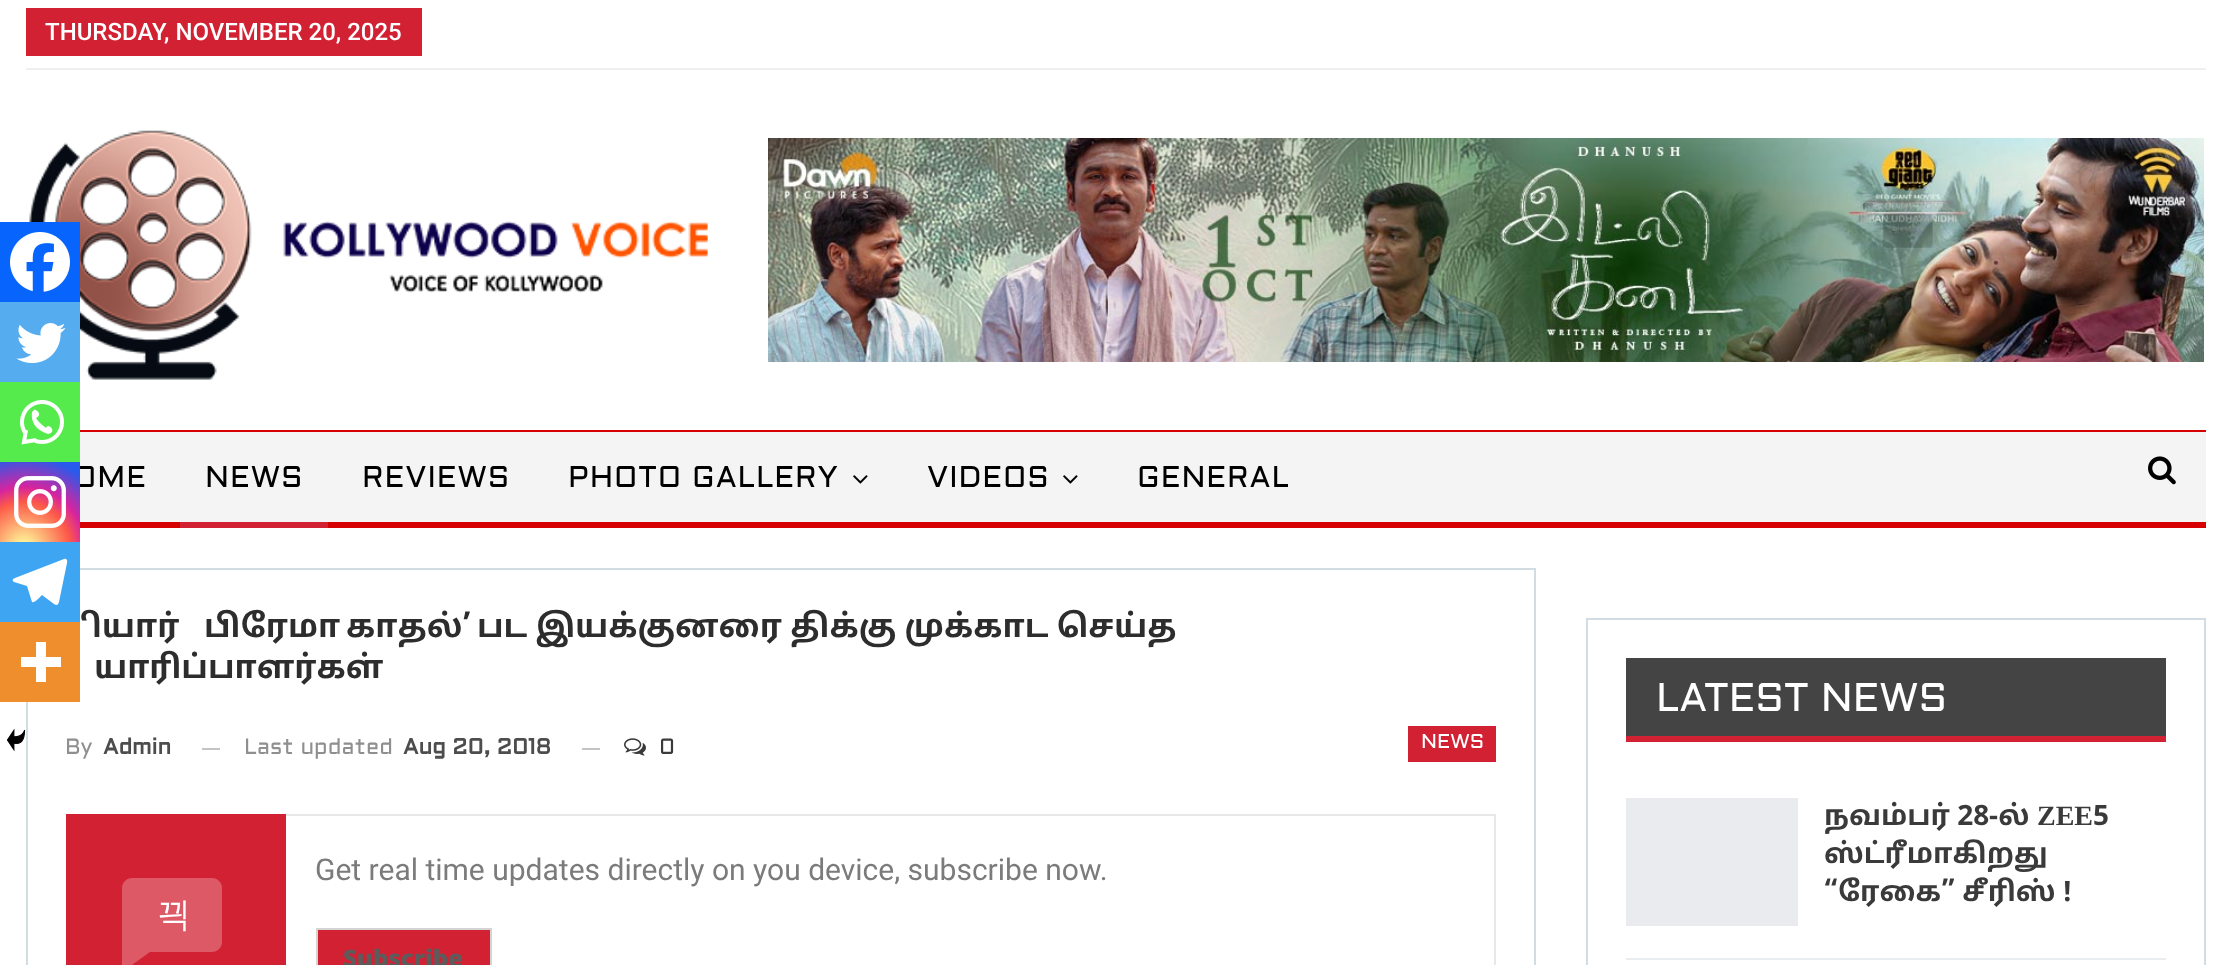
<?xml version="1.0" encoding="UTF-8"?>
<svg xmlns="http://www.w3.org/2000/svg" width="2230" height="965">
    <defs>
        <radialGradient id="g1" gradientUnits="userSpaceOnUse" cx="24" cy="548" r="102"><stop offset="0" stop-color="#FDF497"/><stop offset="0.05" stop-color="#FDF497"/><stop offset="0.45" stop-color="#FD5949"/><stop offset="0.6" stop-color="#D6249F"/><stop offset="0.9" stop-color="#285AEB"/></radialGradient>
    </defs>
    <rect width="100%" height="100%" fill="#FFFFFF"/>
    <rect x="26" y="68" width="2180" height="2" fill="#EFEFEF"/>
    <rect x="26" y="8" width="396" height="48" fill="#D12133"/>
    <text x="45" y="40" font-family="Roboto" font-size="24" font-weight="500" fill="#FFFFFF">THURSDAY, NOVEMBER 20, 2025</text>
    <image x="29" y="130" width="679" height="250" href="img_01.png"/>
    <image x="768" y="138" width="1436" height="224" href="img_02.png"/>
    <rect x="80" y="432" width="2126" height="90" fill="#F4F4F4"/>
    <rect x="80" y="430" width="2126" height="2" fill="#D60000"/>
    <rect x="80" y="522" width="2126" height="6" fill="#D60000"/>
    <text x="73" y="487" font-family="Aldrich" font-size="30" letter-spacing="0.9" fill="#000000">OME</text>
    <text x="205" y="487" font-family="Aldrich" font-size="30" letter-spacing="0.9" fill="#000000">NEWS</text>
    <rect x="180" y="522" width="148" height="6" fill="#D12133"/>
    <text x="362" y="487" font-family="Aldrich" font-size="30" letter-spacing="0.9" fill="#000000">REVIEWS</text>
    <text x="568" y="487" font-family="Aldrich" font-size="30" letter-spacing="0.9" fill="#000000">PHOTO GALLERY</text>
    <image x="853" y="475" width="15" height="9" href="img_03.png"/>
    <text x="927" y="487" font-family="Aldrich" font-size="30" letter-spacing="0.9" fill="#000000">VIDEOS</text>
    <image x="1063" y="475" width="15" height="9" href="img_03.png"/>
    <text x="1137" y="487" font-family="Aldrich" font-size="30" letter-spacing="0.9" fill="#000000">GENERAL</text>
    <image x="2148" y="456" width="28" height="29" href="img_04.png"/>
    <rect x="27" y="569" width="1508" height="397" fill="none" stroke="#D2DCE3" stroke-width="2"/>
    <rect x="0" y="222" width="80" height="80" fill="#0765FE"/>
    <image x="10" y="232" width="60" height="60" href="img_05.png"/>
    <rect x="0" y="302" width="80" height="80" fill="#55ACEE"/>
    <image x="16" y="323" width="50" height="40" href="img_06.png"/>
    <rect x="0" y="382" width="80" height="80" fill="#55EB4C"/>
    <image x="20" y="400" width="44" height="45" href="img_07.png"/>
    <rect x="0" y="462" width="80" height="80" fill="url(#g1)"/>
    <image x="14" y="476" width="52" height="52" href="img_08.png"/>
    <rect x="0" y="542" width="80" height="80" fill="#3DA5F1"/>
    <path d="M 64 559 L 15 578 C 12 579 12 581 14 582 L 27 586 L 32 602 C 34 604 41 596 42 595 L 54 604 C 57 606 58 605 59 602 L 67 563 C 68 560 66 558 64 559 Z" fill="#FFFFFF"/>
    <rect x="0" y="622" width="80" height="80" fill="#EE8E2D"/>
    <path d="M 46 657 V 642 H 36 V 657 H 21 V 667 H 36 V 682 H 46 V 667 H 61 V 657 Z" fill="#FFFFFF" fill-rule="evenodd"/>
    <image x="6" y="728" width="20" height="24" href="img_09.png"/>
    <text x="92" y="637" font-family="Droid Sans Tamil" font-size="32" font-weight="700" fill="#2D2D2D">ியார்</text>
    <text x="204" y="637" font-family="Droid Sans Tamil" font-size="32" font-weight="700" fill="#2D2D2D">பிரேமா</text>
    <text x="346" y="637" font-family="Droid Sans Tamil" font-size="32" font-weight="700" fill="#2D2D2D">காதல்’</text>
    <text x="477" y="637" font-family="Droid Sans Tamil" font-size="32" font-weight="700" fill="#2D2D2D">பட இயக்குனரை திக்கு முக்காட செய்த</text>
    <text x="94" y="678" font-family="Droid Sans Tamil" font-size="32" font-weight="700" fill="#2D2D2D">யாரிப்பாளர்கள்</text>
    <text x="65" y="754" font-family="Aldrich" font-size="22" fill="#8F8F8F">By</text>
    <text x="103" y="754" font-family="Aldrich" font-size="22" font-weight="700" fill="#4D4D4D">Admin</text>
    <rect x="202" y="748" width="18" height="2" fill="#C4C4C4"/>
    <text x="244" y="754" font-family="Aldrich" font-size="22" fill="#8F8F8F">Last updated</text>
    <text x="403" y="754" font-family="Aldrich" font-size="22" font-weight="700" fill="#4D4D4D">Aug 20, 2018</text>
    <rect x="582" y="748" width="18" height="2" fill="#C4C4C4"/>
    <image x="624" y="738" width="22" height="18" href="img_10.png"/>
    <text x="659" y="754" font-family="Aldrich" font-size="22" fill="#3A3A3A">0</text>
    <rect x="1408" y="726" width="88" height="36" fill="#D12133"/>
    <text x="1421" y="748" font-family="Aldrich" font-size="20" fill="#FFFFFF">NEWS</text>
    <rect x="67" y="815" width="1428" height="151" fill="none" stroke="#E8E8E8" stroke-width="2"/>
    <text x="315" y="880" font-family="Roboto" font-size="30" fill="#7B7B7B">Get real time updates directly on you device, subscribe now.</text>
    <rect x="66" y="814" width="220" height="151" fill="#D12133"/>
    <path d="M 132 878 H 212 C 217.5 878 222 882.5 222 888 V 942 C 222 947.5 217.5 952 212 952 H 122 V 888 C 122 882.5 126.5 878 132 878 Z" fill="#DD5966"/>
    <text x="157" y="926" font-family="WenQuanYi Zen Hei" font-size="34" font-weight="500" fill="#FFFFFF">끡</text>
    <path d="M 122 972 V 952 H 150 Z" fill="#DD5966"/>
    <rect x="317" y="929" width="174" height="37" fill="#D12133" stroke="#D4D4D4" stroke-width="2"/>
    <text x="343" y="967" font-family="Open Sans" font-size="24" font-weight="800" fill="#5C5C5C">Subscribe</text>
    <rect x="1587" y="619" width="618" height="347" fill="none" stroke="#D2DCE3" stroke-width="2"/>
    <rect x="1626" y="658" width="540" height="78" fill="#444444"/>
    <text x="1656" y="711" font-family="Aldrich" font-size="40" fill="#FFFFFF">LATEST NEWS</text>
    <rect x="1626" y="736" width="540" height="6" fill="#D12133"/>
    <rect x="1626" y="958" width="540" height="2" fill="#E8EDF1"/>
    <rect x="1626" y="798" width="172" height="128" fill="#E9EBEE"/>
    <text x="1824" y="825" font-family="Droid Sans Tamil" font-size="28" font-weight="700" fill="#3A3A3A">நவம்பர் 28-ல்</text>
    <text x="2037" y="825" font-family="Liberation Serif" font-size="28" font-weight="700" fill="#3A3A3A">ZEE</text>
    <text x="2093" y="825" font-family="Droid Sans Tamil" font-size="28" font-weight="700" fill="#3A3A3A">5</text>
    <text font-family="Droid Sans Tamil" font-size="28" font-weight="700" fill="#3A3A3A">
        <tspan x="1824" y="863">ஸ்ட்ரீமாகிறது</tspan>
        <tspan x="1824" y="901">“ரேகை” சீரிஸ் !</tspan>
    </text>
</svg>
